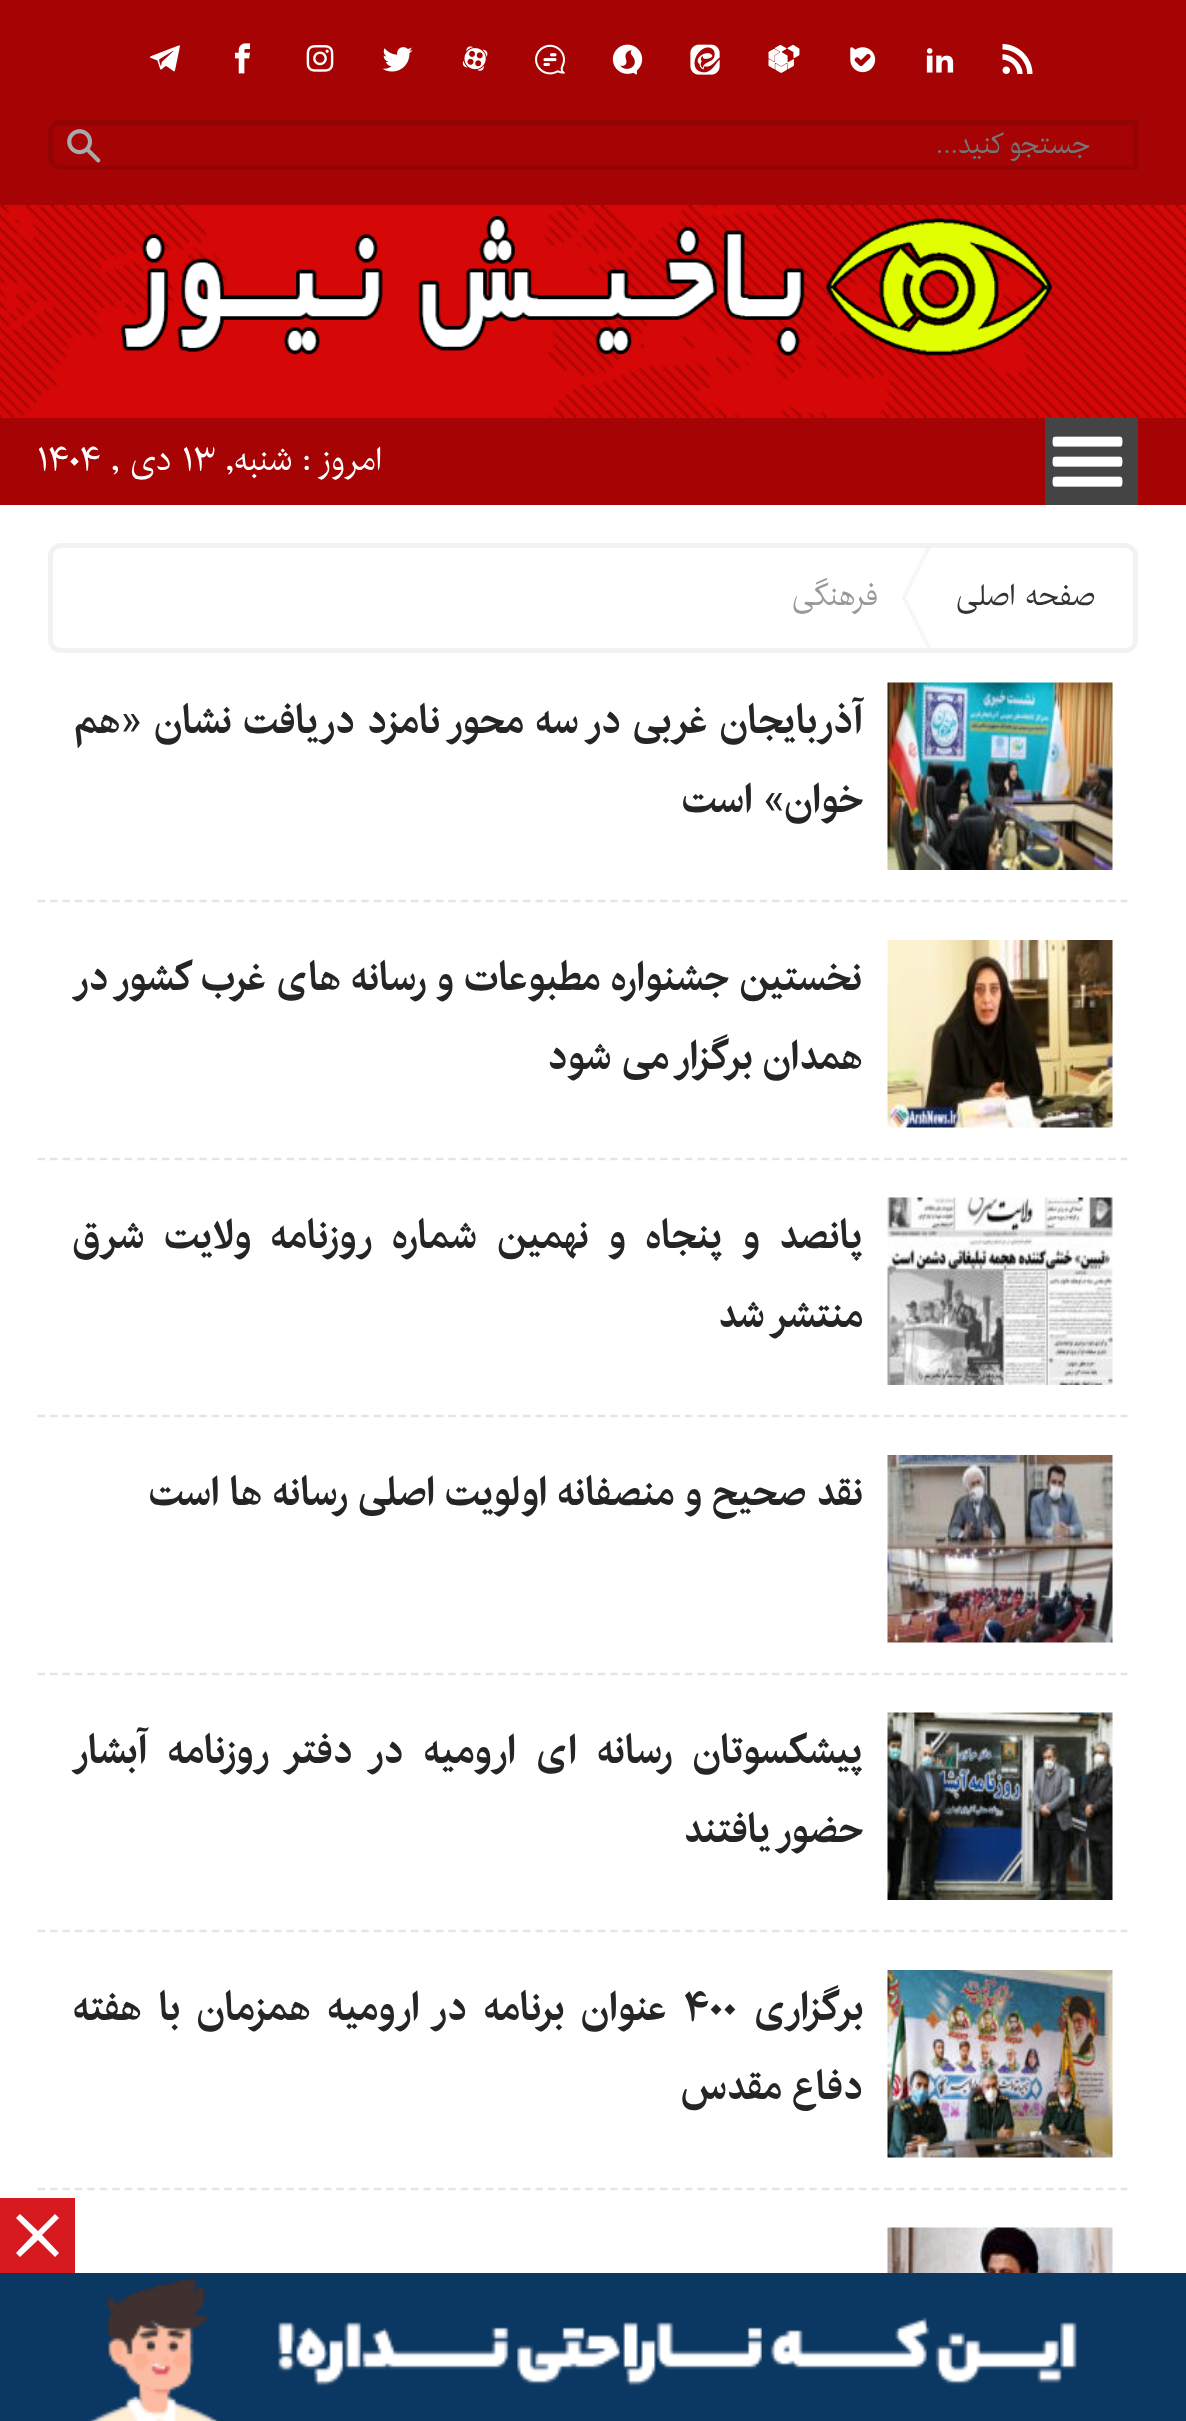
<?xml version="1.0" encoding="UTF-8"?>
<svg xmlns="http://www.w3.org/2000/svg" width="1186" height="2421">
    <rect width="100%" height="100%" fill="#FFFFFF"/>
    <rect x="0" y="205" width="1186" height="213" fill="#D60707"/>
    <rect x="0" y="0" width="1186" height="205" fill="#A60404"/>
    <image x="1002" y="44" width="31" height="30" href="img_01.png"/>
    <image x="926" y="48" width="28" height="25" href="img_02.png"/>
    <image x="850" y="47" width="26" height="26" href="img_03.png"/>
    <image x="768" y="44" width="32" height="29" href="img_04.png"/>
    <image x="690" y="44" width="30" height="31" href="img_05.png"/>
    <image x="612" y="44" width="31" height="31" href="img_06.png"/>
    <image x="535" y="44" width="30" height="31" href="img_07.png"/>
    <image x="462" y="46" width="26" height="25" href="img_08.png"/>
    <image x="382" y="47" width="31" height="25" href="img_09.png"/>
    <image x="306" y="45" width="28" height="27" href="img_10.png"/>
    <image x="235" y="43" width="15" height="31" href="img_11.png"/>
    <image x="150" y="45" width="30" height="27" href="img_12.png"/>
    <path d="M 61 122.5 H 1135.5 V 167.5 H 61 C 55 167.5 50.5 163 50.5 157 V 133 C 50.5 127 55 122.5 61 122.5 Z" fill="none" stroke="#950404" stroke-width="5"/>
    <text x="1090" y="153" font-family="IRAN" font-size="27.5" direction="rtl" fill="#757575">جستجو کنید...</text>
    <image x="67" y="129" width="34" height="34" href="img_13.png"/>
    <image x="0" y="205" width="1186" height="213" href="img_14.png"/>
    <image x="121" y="215" width="932" height="141" href="img_15.png"/>
    <rect x="0" y="418" width="1186" height="87" fill="#A60404"/>
    <rect x="1045" y="418" width="93" height="87" fill="#444444"/>
    <image x="1052" y="436" width="71" height="51" href="img_16.png"/>
    <text x="382" y="470" font-family="IRAN" font-size="32.5" direction="rtl" fill="#FFFFFF">امروز : شنبه,</text>
    <text x="182" y="470" font-family="IRAN" font-size="32.5" fill="#FFFFFF">۱۳</text>
    <text x="171" y="470" font-family="IRAN" font-size="32.5" direction="rtl" fill="#FFFFFF">دی ,</text>
    <text x="37" y="470" font-family="IRAN" font-size="32.5" fill="#FFFFFF">۱۴۰۴</text>
    <rect x="50.5" y="545.5" width="1085" height="105" rx="10.5" fill="none" stroke="#F2F2F2" stroke-width="5"/>
    <text x="1095" y="605" font-family="IRAN" font-size="30" direction="rtl" fill="#333333">صفحه اصلی</text>
    <image x="902" y="547" width="28" height="101" href="img_17.png"/>
    <text x="878" y="605" font-family="IRAN" font-size="30" direction="rtl" fill="#999999">فرهنگی</text>
    <image x="887" y="682" width="226" height="188" href="img_18.png"/>
    <text font-family="IRAN" font-size="39.6" font-weight="700" direction="rtl" fill="#262424">
        <tspan x="863" y="733" word-spacing="1.5">آذربایجان غربی در سه محور نامزد دریافت نشان «هم</tspan>
        <tspan x="863" y="812">خوان» است</tspan>
    </text>
    <path d="M 37.5 901 H 1127.5" fill="none" stroke="#E5E5E5" stroke-width="2.5" stroke-dasharray="7.5 4.95"/>
    <image x="887" y="940" width="226" height="188" href="img_19.png"/>
    <text x="862" y="990" font-family="IRAN" font-size="39.6" font-weight="700" direction="rtl" fill="#262424">نخستین جشنواره مطبوعات و رسانه های غرب کشور در</text>
    <text x="863" y="1069" font-family="IRAN" font-size="39.6" font-weight="700" direction="rtl" fill="#262424">همدان برگزار می شود</text>
    <path d="M 37.5 1159 H 1127.5" fill="none" stroke="#E5E5E5" stroke-width="2.5" stroke-dasharray="7.5 4.95"/>
    <image x="887" y="1197" width="226" height="188" href="img_20.png"/>
    <text font-family="IRAN" font-size="39.6" font-weight="700" direction="rtl" fill="#262424">
        <tspan x="863" y="1248" word-spacing="9.5">پانصد و پنجاه و نهمین شماره روزنامه ولایت شرق</tspan>
        <tspan x="863" y="1327">منتشر شد</tspan>
    </text>
    <path d="M 37.5 1416 H 1127.5" fill="none" stroke="#E5E5E5" stroke-width="2.5" stroke-dasharray="7.5 4.95"/>
    <image x="887" y="1455" width="226" height="188" href="img_21.png"/>
    <text x="863" y="1505" font-family="IRAN" font-size="39.6" font-weight="700" direction="rtl" fill="#262424">نقد صحیح و منصفانه اولویت اصلی رسانه ها است</text>
    <path d="M 37.5 1674 H 1127.5" fill="none" stroke="#E5E5E5" stroke-width="2.5" stroke-dasharray="7.5 4.95"/>
    <image x="887" y="1712" width="226" height="188" href="img_22.png"/>
    <text font-family="IRAN" font-size="39.6" font-weight="700" direction="rtl" fill="#262424">
        <tspan x="863" y="1763" word-spacing="10">پیشکسوتان رسانه ای ارومیه در دفتر روزنامه آبشار</tspan>
        <tspan x="863" y="1842">حضور یافتند</tspan>
    </text>
    <path d="M 37.5 1931 H 1127.5" fill="none" stroke="#E5E5E5" stroke-width="2.5" stroke-dasharray="7.5 4.95"/>
    <image x="887" y="1970" width="226" height="188" href="img_23.png"/>
    <text x="863" y="2020" font-family="IRAN" font-size="39.6" font-weight="700" direction="rtl" fill="#262424">برگزاری</text>
    <text x="684" y="2020" font-family="IRAN" font-size="39.6" font-weight="700" fill="#262424">۴۰۰</text>
    <text x="667" y="2020" word-spacing="6.5" font-family="IRAN" font-size="39.6" font-weight="700" direction="rtl" fill="#262424">عنوان برنامه در ارومیه همزمان با هفته</text>
    <text x="863" y="2099" font-family="IRAN" font-size="39.6" font-weight="700" direction="rtl" fill="#262424">دفاع مقدس</text>
    <path d="M 37.5 2189 H 1127.5" fill="none" stroke="#E5E5E5" stroke-width="2.5" stroke-dasharray="7.5 4.95"/>
    <image x="887" y="2227" width="226" height="46" href="img_24.png"/>
    <rect x="0" y="2198" width="75" height="75" fill="#D71920"/>
    <path d="M 59 2218 L 42 2235 L 59 2253 L 55 2257 L 38 2240 L 20 2257 L 16 2253 L 33 2235 L 16 2218 L 20 2214 L 38 2231 L 55 2214 Z" fill="#FFFFFF"/>
    <image x="0" y="2273" width="1186" height="148" href="img_25.png"/>
</svg>
